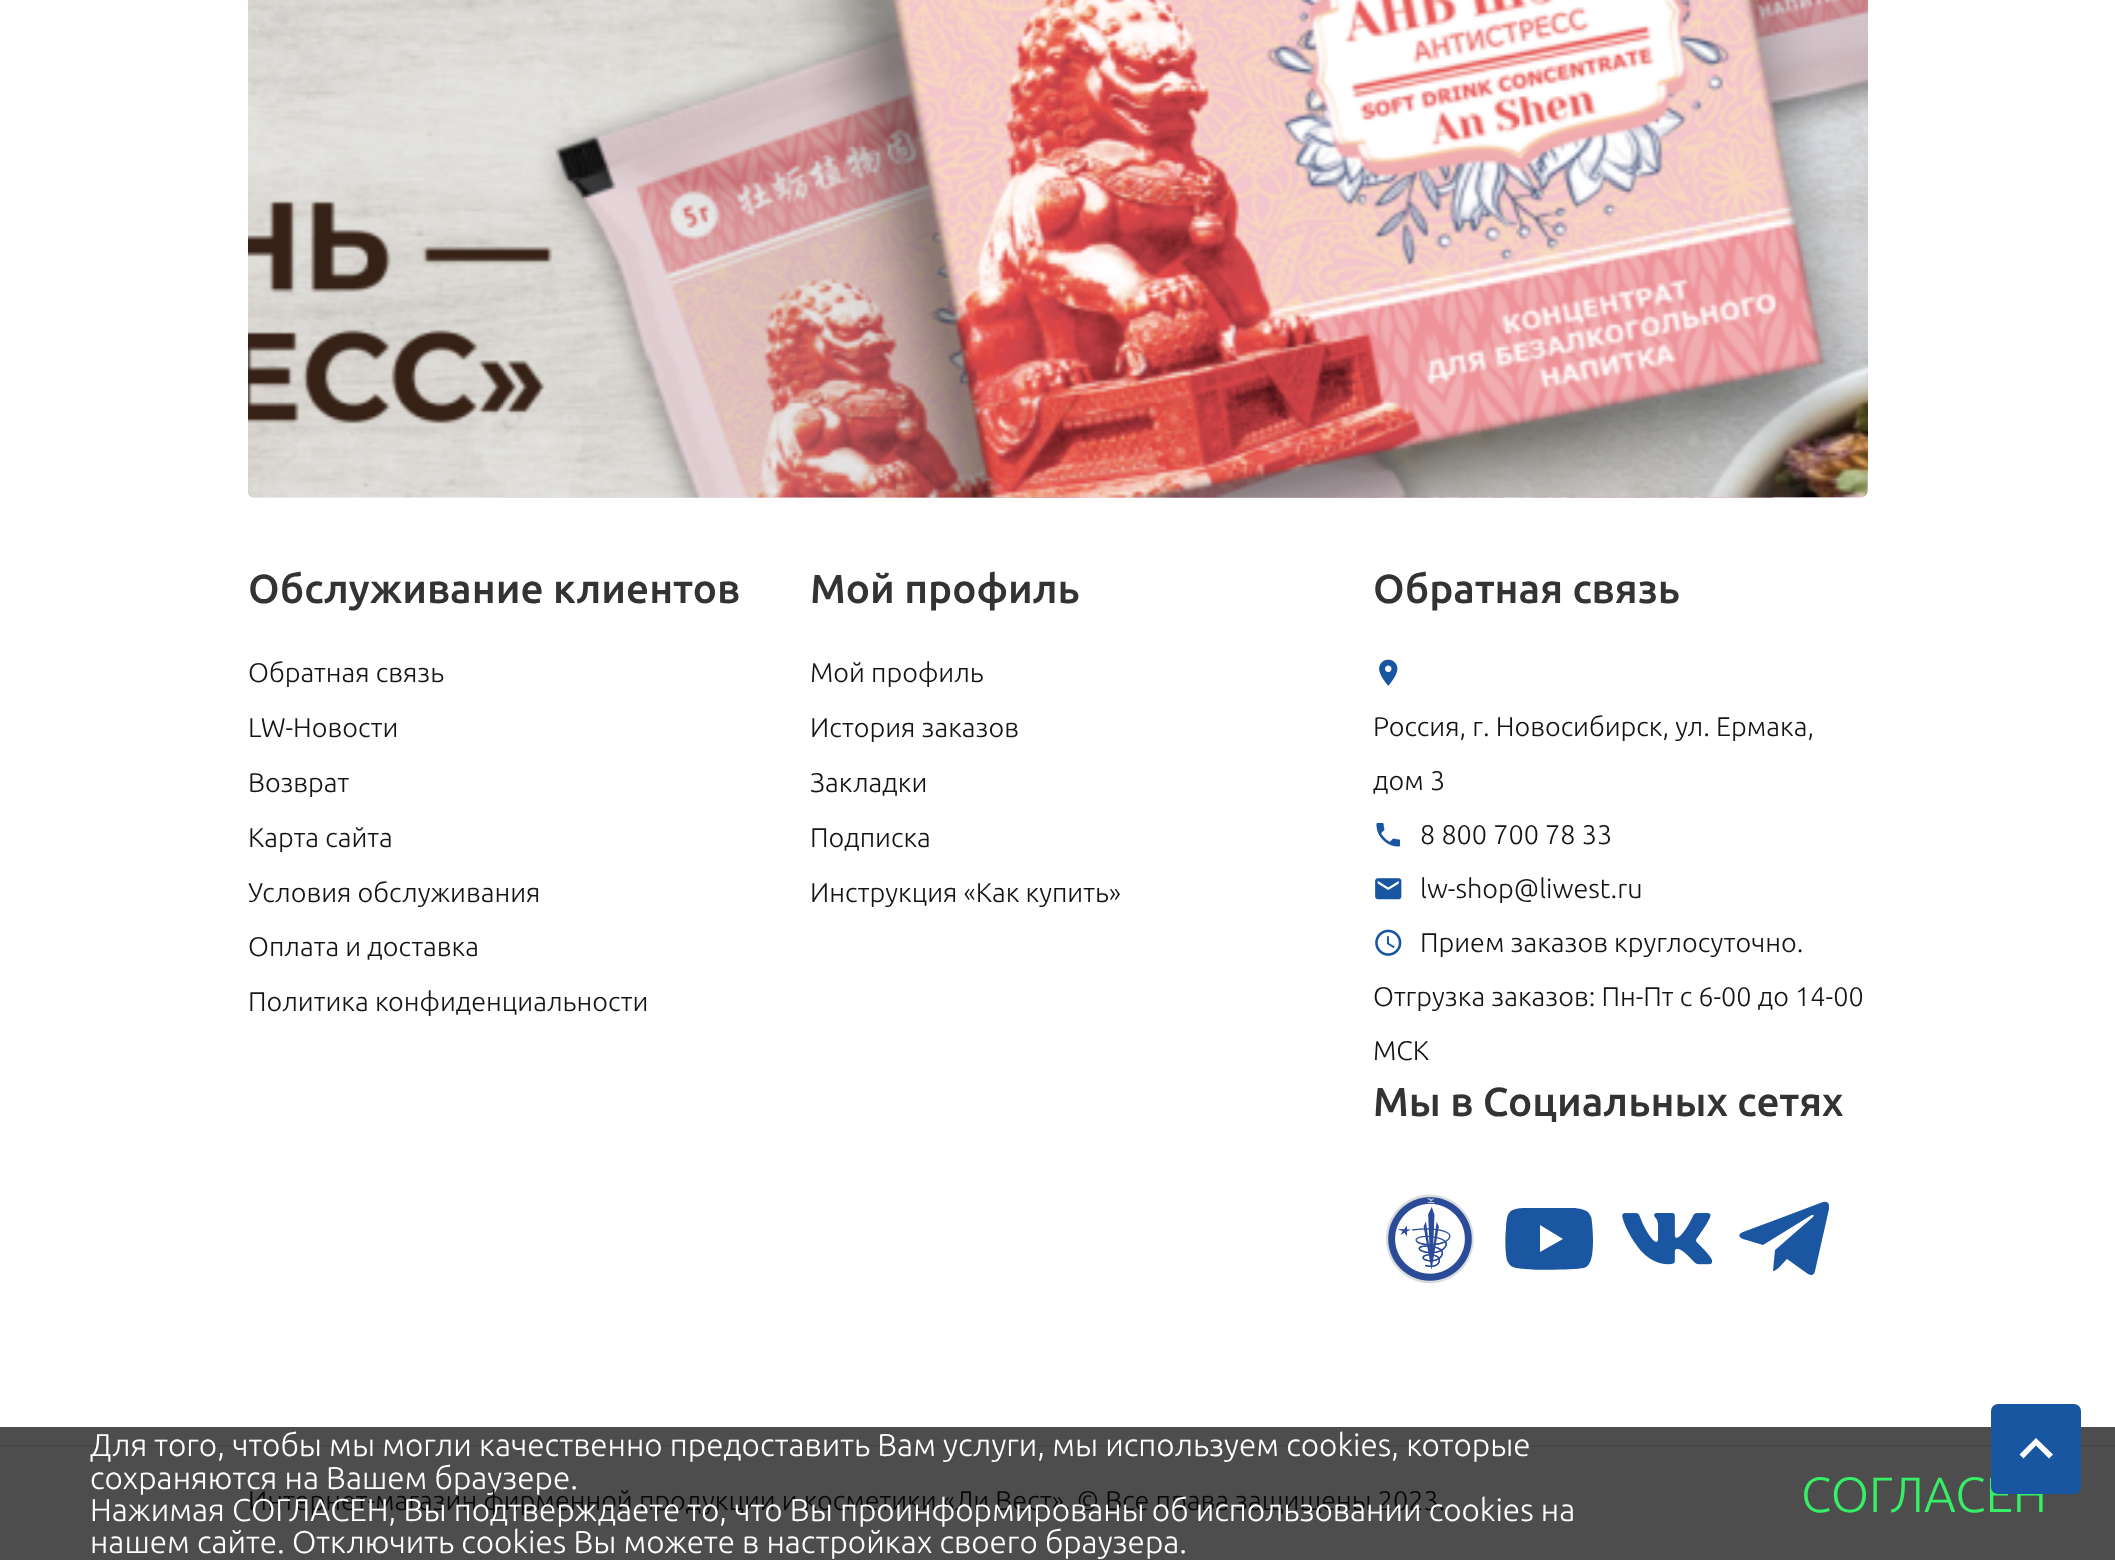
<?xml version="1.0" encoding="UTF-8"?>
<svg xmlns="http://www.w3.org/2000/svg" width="2115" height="1560">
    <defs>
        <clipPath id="clip1"><rect x="1739" y="1195" width="90" height="88"/></clipPath>
    </defs>
    <rect width="100%" height="100%" fill="#FFFFFF"/>
    <rect x="0" y="1427" width="2115" height="133" fill="#4D4D4D"/>
    <image x="248" y="473" width="1620" height="25" href="img_02.png"/>
    <image x="248" y="0" width="1620" height="498" href="img_01.png"/>
    <text x="248" y="603" font-family="Ubuntu" font-size="40.5" font-weight="500" fill="#333333">Обслуживание клиентов</text>
    <text x="248" y="682" font-family="Ubuntu" font-size="27" font-weight="300" fill="#151515">Обратная связь</text>
    <text x="248" y="737" font-family="Ubuntu" font-size="27" font-weight="300" fill="#151515">LW-Новости</text>
    <text x="248" y="792" font-family="Ubuntu" font-size="27" font-weight="300" fill="#151515">Возврат</text>
    <text x="248" y="847" font-family="Ubuntu" font-size="27" font-weight="300" fill="#151515">Карта сайта</text>
    <text x="248" y="902" font-family="Ubuntu" font-size="27" font-weight="300" fill="#151515">Условия обслуживания</text>
    <text x="248" y="956" font-family="Ubuntu" font-size="27" font-weight="300" fill="#151515">Оплата и доставка</text>
    <text x="248" y="1011" font-family="Ubuntu" font-size="27" font-weight="300" fill="#151515">Политика конфиденциальности</text>
    <text x="810" y="603" font-family="Ubuntu" font-size="40.5" font-weight="500" fill="#333333">Мой профиль</text>
    <text x="810" y="682" font-family="Ubuntu" font-size="27" font-weight="300" fill="#151515">Мой профиль</text>
    <text x="810" y="737" font-family="Ubuntu" font-size="27" font-weight="300" fill="#151515">История заказов</text>
    <text x="810" y="792" font-family="Ubuntu" font-size="27" font-weight="300" fill="#151515">Закладки</text>
    <text x="810" y="847" font-family="Ubuntu" font-size="27" font-weight="300" fill="#151515">Подписка</text>
    <text x="810" y="902" font-family="Ubuntu" font-size="27" font-weight="300" fill="#151515">Инструкция «Как купить»</text>
    <text x="1373" y="603" font-family="Ubuntu" font-size="40.5" font-weight="500" fill="#333333">Обратная связь</text>
    <image x="1379" y="659" width="19" height="27" href="img_03.png"/>
    <text x="1373" y="736" font-family="Ubuntu" font-size="27" font-weight="300" fill="#151515">Россия, г. Новосибирск, ул. Ермака,</text>
    <text x="1373" y="790" font-family="Ubuntu" font-size="27" font-weight="300" fill="#151515">дом 3</text>
    <image x="1376" y="822" width="25" height="25" href="img_04.png"/>
    <text x="1420" y="844" font-family="Ubuntu" font-size="27" font-weight="300" fill="#151515">8 800 700 78 33</text>
    <image x="1375" y="878" width="27" height="22" href="img_05.png"/>
    <text x="1420" y="898" font-family="Ubuntu" font-size="27" font-weight="300" fill="#151515">lw-shop@liwest.ru</text>
    <image x="1375" y="929" width="27" height="27" href="img_06.png"/>
    <text x="1420" y="952" font-family="Ubuntu" font-size="27" font-weight="300" fill="#151515">Прием заказов круглосуточно.</text>
    <text x="1373" y="1006" font-family="Ubuntu" font-size="27" font-weight="300" fill="#151515">Отгрузка заказов: Пн-Пт с 6-00 до 14-00</text>
    <text x="1373" y="1060" font-family="Ubuntu" font-size="27" font-weight="300" fill="#151515">МСК</text>
    <text x="1373" y="1116" font-family="Ubuntu" font-size="40.5" font-weight="500" fill="#333333">Мы в Социальных сетях</text>
    <image x="1386" y="1194" width="88" height="90" href="img_07.png"/>
    <path d="M 1591 1216 V 1217 C 1589 1210 1582 1209 1575 1208 H 1540 H 1523 C 1508 1209 1507 1213 1506 1228 C 1505 1239 1505 1250 1507 1261 V 1260 C 1508 1263 1510 1266 1513 1267 C 1522 1271 1574 1270 1584 1268 C 1586 1267 1588 1266 1589 1264 C 1595 1256 1593 1226 1591 1216 Z M 1540 1252 V 1225 L 1563 1239 Z" fill="#1A56A2"/>
    <image x="1622" y="1213" width="90" height="52" href="img_08.png"/>
    <g clip-path="url(#clip1)">
        <path d="M 1775 1250 L 1773 1271 C 1777 1271 1784 1262 1787 1259 L 1808 1274 C 1812 1276 1814 1275 1815 1271 L 1829 1209 C 1830 1203 1827 1201 1823 1202 L 1743 1232 C 1738 1234 1738 1237 1743 1239 L 1763 1245 L 1810 1216 C 1813 1214 1815 1215 1813 1217 Z" fill="#1A56A2"/>
    </g>
    <rect x="0" y="1445" width="2115" height="2" fill="#474747"/>
    <text font-family="Ubuntu" font-size="31.5" font-weight="300" fill="#FFFFFF">
        <tspan x="90" y="1456">Для того, чтобы мы могли качественно предоставить Вам услуги, мы используем cookies, которые</tspan>
        <tspan x="90" y="1489">сохраняются на Вашем браузере.</tspan>
    </text>
    <text x="248" y="1510" font-family="Ubuntu" font-size="27" font-weight="300" fill="#060606">Интернет-магазин фирменной продукции и косметики «Ли Вест». © Все права защищены 2023.</text>
    <text font-family="Ubuntu" font-size="31.5" font-weight="300" fill="#FFFFFF">
        <tspan x="90" y="1521">Нажимая СОГЛАСЕН, Вы подтверждаете то, что Вы проинформированы об использовании cookies на</tspan>
        <tspan x="90" y="1553">нашем сайте. Отключить cookies Вы можете в настройках своего браузера.</tspan>
    </text>
    <text x="1801" y="1512" font-family="Ubuntu" font-size="49.5" font-weight="300" fill="#35F067">СОГЛАСЕН</text>
    <rect x="1991" y="1404" width="90" height="90" rx="7" fill="#1956A2"/>
    <path d="M 2036 1438 L 2053 1454.5 L 2049 1458.5 L 2036 1445.5 L 2023.5 1458.5 L 2019.5 1454.5 Z" fill="#FFFFFF"/>
</svg>
